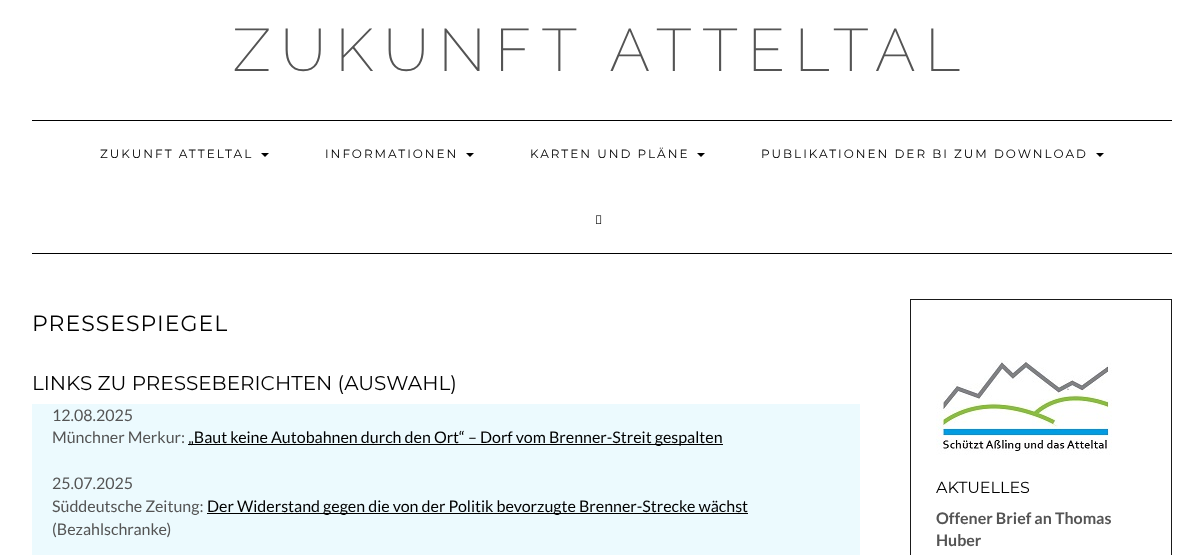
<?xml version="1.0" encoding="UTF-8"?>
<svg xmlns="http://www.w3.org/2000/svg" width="1204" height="555">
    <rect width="100%" height="100%" fill="#FFFFFF"/>
    <text x="233" y="71" font-family="Raleway" font-size="60" font-weight="100" letter-spacing="10" fill="#545454">ZUKUNFT ATTELTAL</text>
    <rect x="32" y="120" width="1140" height="1" fill="#000000"/>
    <rect x="32" y="253" width="1140" height="1" fill="#000000"/>
    <text x="100" y="158" font-family="Montserrat" font-size="12" font-weight="100" letter-spacing="2" fill="#000000">ZUKUNFT ATTELTAL</text>
    <path d="M 261 153 H 269 L 265 157 Z" fill="#000000"/>
    <text x="325" y="158" font-family="Montserrat" font-size="12" font-weight="100" letter-spacing="2" fill="#000000">INFORMATIONEN</text>
    <path d="M 466 153 H 474 L 470 157 Z" fill="#000000"/>
    <text x="530" y="158" font-family="Montserrat" font-size="12" font-weight="100" letter-spacing="2" fill="#000000">KARTEN UND PLÄNE</text>
    <path d="M 697 153 H 705 L 701 157 Z" fill="#000000"/>
    <text x="761" y="158" font-family="Montserrat" font-size="12" font-weight="100" letter-spacing="2" fill="#000000">PUBLIKATIONEN DER BI ZUM DOWNLOAD</text>
    <path d="M 1096 153 H 1104 L 1100 157 Z" fill="#000000"/>
    <image x="596" y="215" width="6" height="9" href="img_01.png"/>
    <text x="32" y="331" font-family="Montserrat" font-size="22" font-weight="100" letter-spacing="1" fill="#000000">PRESSESPIEGEL</text>
    <text x="32" y="390" font-family="Montserrat" font-size="20" font-weight="100" fill="#000000">LINKS ZU PRESSEBERICHTEN (AUSWAHL)</text>
    <rect x="32" y="404" width="828" height="151" fill="#ECFAFE"/>
    <text font-family="Lato" font-size="16" fill="#545454">
        <tspan x="52" y="421">12.08.2025</tspan>
        <tspan x="52" y="443">Münchner Merkur:</tspan>
    </text>
    <rect x="188" y="444" width="535" height="1" fill="#000000"/>
    <text x="188" y="443" font-family="Lato" font-size="16" fill="#000000">„Baut keine Autobahnen durch den Ort“ – Dorf vom Brenner-Streit gespalten</text>
    <text font-family="Lato" font-size="16" fill="#545454">
        <tspan x="52" y="489">25.07.2025</tspan>
        <tspan x="52" y="512">Süddeutsche Zeitung:</tspan>
    </text>
    <rect x="207" y="513" width="541" height="1" fill="#000000"/>
    <text x="207" y="512" font-family="Lato" font-size="16" fill="#000000">Der Widerstand gegen die von der Politik bevorzugte Brenner-Strecke wächst</text>
    <text x="52" y="535" font-family="Lato" font-size="16" fill="#545454">(Bezahlschranke)</text>
    <rect x="910.5" y="299.5" width="261" height="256" fill="none" stroke="#1A1A1A"/>
    <image x="936" y="360" width="176" height="95" href="img_02.png"/>
    <text x="936" y="493" font-family="Montserrat" font-size="16" font-weight="100" fill="#000000">AKTUELLES</text>
    <text font-family="Lato" font-size="16" font-weight="700" fill="#545454">
        <tspan x="936" y="524">Offener Brief an Thomas</tspan>
        <tspan x="936" y="546">Huber</tspan>
    </text>
</svg>
